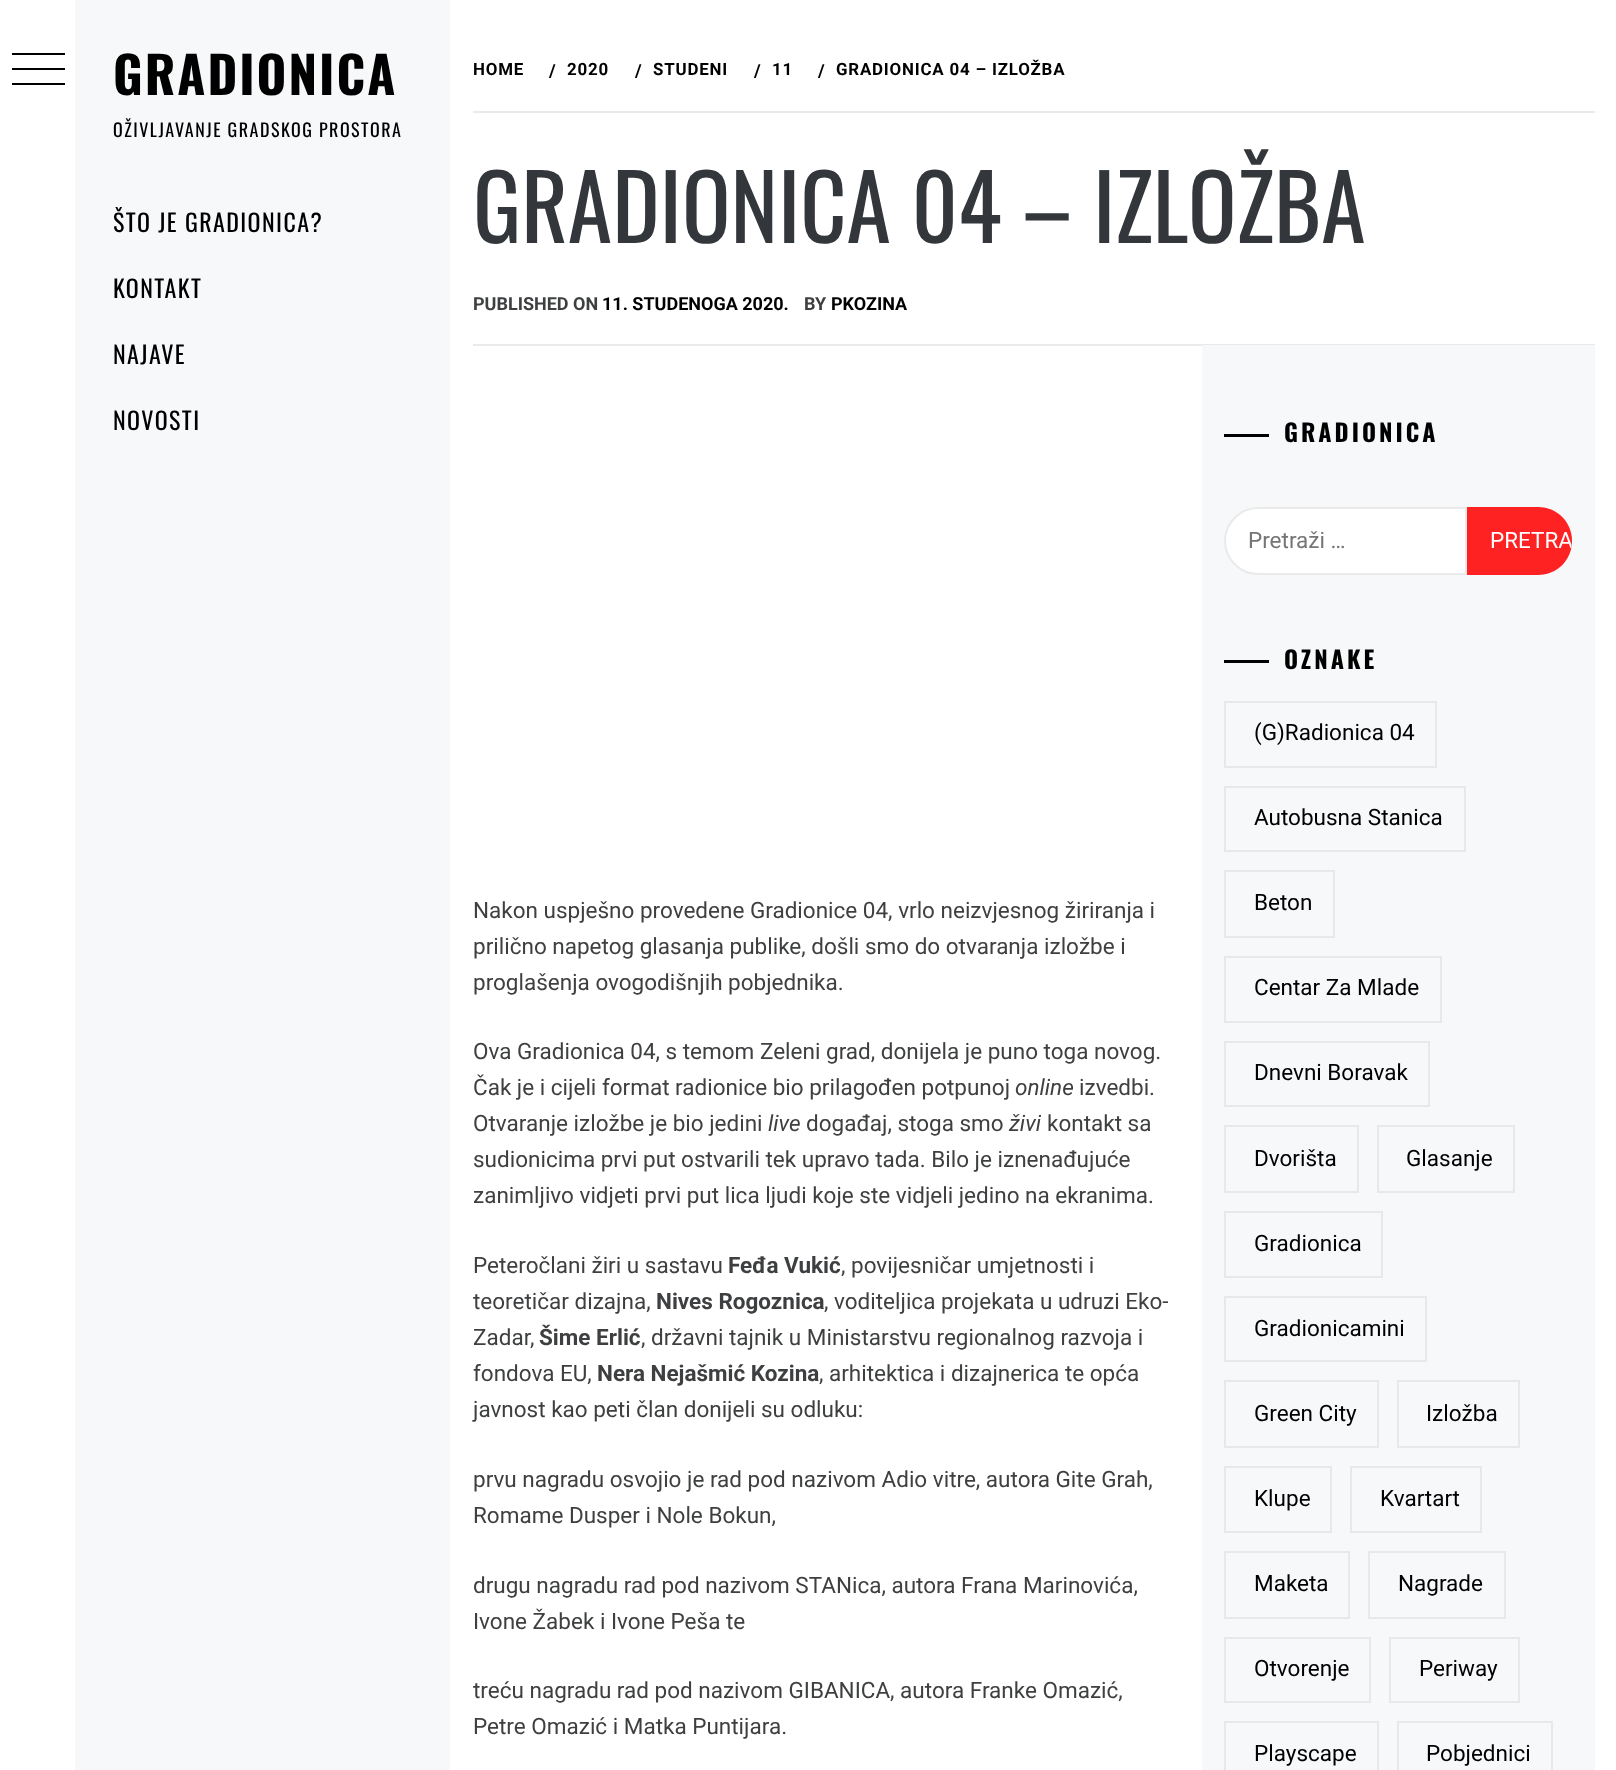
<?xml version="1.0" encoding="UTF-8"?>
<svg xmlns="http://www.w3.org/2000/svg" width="1616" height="1770">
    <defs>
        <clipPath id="clip1"><path d="M 1467 507 H 1538 C 1557 507 1572 522 1572 541 C 1572 560 1557 575 1538 575 H 1467 Z"/></clipPath>
    </defs>
    <rect width="100%" height="100%" fill="#FFFFFF"/>
    <rect x="12" y="53" width="53" height="2" fill="#000000"/>
    <rect x="12" y="68" width="53" height="2" fill="#000000"/>
    <rect x="12" y="83" width="53" height="2" fill="#000000"/>
    <rect x="75" y="0" width="375" height="1770" fill="#F6F8F9"/>
    <text x="113" y="95" font-family="Oswald" font-size="51" font-weight="700" letter-spacing="2" fill="#000000">GRADIONICA</text>
    <text x="113" y="137" font-family="Oswald" font-size="18" letter-spacing="1.5" fill="#000000">OŽIVLJAVANJE GRADSKOG PROSTORA</text>
    <text x="113" y="232" font-family="Oswald" font-size="24" letter-spacing="1.4" fill="#000000">ŠTO JE GRADIONICA?</text>
    <text x="113" y="298" font-family="Oswald" font-size="24" letter-spacing="1.4" fill="#000000">KONTAKT</text>
    <text x="113" y="364" font-family="Oswald" font-size="24" letter-spacing="1.4" fill="#000000">NAJAVE</text>
    <text x="113" y="430" font-family="Oswald" font-size="24" letter-spacing="1.4" fill="#000000">NOVOSTI</text>
    <rect x="473" y="344" width="1122" height="2" fill="#EAEAEA"/>
    <rect x="473" y="111" width="1122" height="2" fill="#EAEAEA"/>
    <text x="473" y="75" font-family="Roboto" font-size="16.9" font-weight="700" letter-spacing="0.8" fill="#000000">HOME</text>
    <text x="549" y="77" font-family="Roboto" font-size="18" font-weight="700" letter-spacing="0.8" fill="#000000">/</text>
    <text x="567" y="75" font-family="Roboto" font-size="16.9" font-weight="700" letter-spacing="0.8" fill="#000000">2020</text>
    <text x="635" y="77" font-family="Roboto" font-size="18" font-weight="700" letter-spacing="0.8" fill="#000000">/</text>
    <text x="653" y="75" font-family="Roboto" font-size="16.9" font-weight="700" letter-spacing="0.8" fill="#000000">STUDENI</text>
    <text x="754" y="77" font-family="Roboto" font-size="18" font-weight="700" letter-spacing="0.8" fill="#000000">/</text>
    <text x="772" y="75" font-family="Roboto" font-size="16.9" font-weight="700" letter-spacing="0.8" fill="#000000">11</text>
    <text x="818" y="77" font-family="Roboto" font-size="18" font-weight="700" letter-spacing="0.8" fill="#000000">/</text>
    <text x="836" y="75" font-family="Roboto" font-size="16.9" font-weight="700" letter-spacing="0.8" fill="#000000">GRADIONICA 04 – IZLOŽBA</text>
    <text x="473" y="243" font-family="Oswald" font-size="90" fill="#33363B">GRADIONICA 04 – IZLOŽBA</text>
    <text x="473" y="310" font-family="Roboto" font-size="18" font-weight="700" fill="#3E3F40">PUBLISHED ON</text>
    <text x="602" y="310" font-family="Roboto" font-size="18" font-weight="700" fill="#000000">11. STUDENOGA 2020.</text>
    <text x="804" y="310" font-family="Roboto" font-size="18" font-weight="700" fill="#3E3F40">BY</text>
    <text x="831" y="310" font-family="Roboto" font-size="18" font-weight="700" fill="#000000">PKOZINA</text>
    <text font-family="Roboto" font-size="22.5" fill="#3E3F40">
        <tspan x="473" y="918">Nakon uspješno provedene Gradionice 04, vrlo neizvjesnog žiriranja i</tspan>
        <tspan x="473" y="954">prilično napetog glasanja publike, došli smo do otvaranja izložbe i</tspan>
        <tspan x="473" y="990">proglašenja ovogodišnjih pobjednika.</tspan>
    </text>
    <text font-family="Roboto" font-size="22.5" fill="#3E3F40">
        <tspan x="473" y="1059">Ova Gradionica 04, s temom Zeleni grad, donijela je puno toga novog.</tspan>
        <tspan x="473" y="1095">Čak je i cijeli format radionice bio prilagođen potpunoj</tspan>
    </text>
    <text x="1015" y="1095" font-family="Roboto" font-size="22.5" font-style="italic" fill="#3E3F40">online</text>
    <text x="1079" y="1095" font-family="Roboto" font-size="22.5" fill="#3E3F40">izvedbi.</text>
    <text x="473" y="1131" font-family="Roboto" font-size="22.5" fill="#3E3F40">Otvaranje izložbe je bio jedini</text>
    <text x="768" y="1131" font-family="Roboto" font-size="22.5" font-style="italic" fill="#3E3F40">live</text>
    <text x="806" y="1131" font-family="Roboto" font-size="22.5" fill="#3E3F40">događaj, stoga smo</text>
    <text x="1009" y="1131" font-family="Roboto" font-size="22.5" font-style="italic" fill="#3E3F40">živi</text>
    <text x="1047" y="1131" font-family="Roboto" font-size="22.5" fill="#3E3F40">kontakt sa</text>
    <text font-family="Roboto" font-size="22.5" fill="#3E3F40">
        <tspan x="473" y="1167">sudionicima prvi put ostvarili tek upravo tada. Bilo je iznenađujuće</tspan>
        <tspan x="473" y="1203">zanimljivo vidjeti prvi put lica ljudi koje ste vidjeli jedino na ekranima.</tspan>
    </text>
    <text x="473" y="1273" font-family="Roboto" font-size="22.5" fill="#3E3F40">Peteročlani žiri u sastavu</text>
    <text x="728" y="1273" font-family="Roboto" font-size="22.5" font-weight="700" fill="#3E3F40">Feđa Vukić</text>
    <text x="841" y="1273" font-family="Roboto" font-size="22.5" fill="#3E3F40">, povijesničar umjetnosti i</text>
    <text x="473" y="1309" font-family="Roboto" font-size="22.5" fill="#3E3F40">teoretičar dizajna,</text>
    <text x="656" y="1309" font-family="Roboto" font-size="22.5" font-weight="700" fill="#3E3F40">Nives Rogoznica</text>
    <text x="824" y="1309" font-family="Roboto" font-size="22.5" fill="#3E3F40">, voditeljica projekata u udruzi Eko-</text>
    <text x="473" y="1345" font-family="Roboto" font-size="22.5" fill="#3E3F40">Zadar,</text>
    <text x="539" y="1345" font-family="Roboto" font-size="22.5" font-weight="700" fill="#3E3F40">Šime Erlić</text>
    <text x="641" y="1345" font-family="Roboto" font-size="22.5" fill="#3E3F40">, državni tajnik u Ministarstvu regionalnog razvoja i</text>
    <text x="473" y="1381" font-family="Roboto" font-size="22.5" fill="#3E3F40">fondova EU,</text>
    <text x="597" y="1381" font-family="Roboto" font-size="22.5" font-weight="700" fill="#3E3F40">Nera Nejašmić Kozina</text>
    <text x="819" y="1381" font-family="Roboto" font-size="22.5" fill="#3E3F40">, arhitektica i dizajnerica te opća</text>
    <text x="473" y="1417" font-family="Roboto" font-size="22.5" fill="#3E3F40">javnost kao peti član donijeli su odluku:</text>
    <text font-family="Roboto" font-size="22.5" fill="#3E3F40">
        <tspan x="473" y="1487">prvu nagradu osvojio je rad pod nazivom Adio vitre, autora Gite Grah,</tspan>
        <tspan x="473" y="1523">Romame Dusper i Nole Bokun,</tspan>
    </text>
    <text font-family="Roboto" font-size="22.5" fill="#3E3F40">
        <tspan x="473" y="1593">drugu nagradu rad pod nazivom STANica, autora Frana Marinovića,</tspan>
        <tspan x="473" y="1629">Ivone Žabek i Ivone Peša te</tspan>
    </text>
    <text font-family="Roboto" font-size="22.5" fill="#3E3F40">
        <tspan x="473" y="1698">treću nagradu rad pod nazivom GIBANICA, autora Franke Omazić,</tspan>
        <tspan x="473" y="1734">Petre Omazić i Matka Puntijara.</tspan>
    </text>
    <rect x="1202" y="345" width="393" height="1425" fill="#F6F8F9"/>
    <rect x="1224" y="434" width="45" height="3" fill="#000000"/>
    <text x="1284" y="442" font-family="Oswald" font-size="24" font-weight="700" letter-spacing="3" fill="#000000">GRADIONICA</text>
    <path d="M 1258 508 H 1466 V 574 H 1258 C 1240 574 1225 559 1225 541 C 1225 523 1240 508 1258 508 Z" fill="#FFFFFF" stroke="#EAEAEA" stroke-width="2"/>
    <text x="1248" y="548" font-family="Roboto" font-size="22.5" fill="#757575">Pretraži …</text>
    <path d="M 1467 507 H 1538 C 1557 507 1572 522 1572 541 C 1572 560 1557 575 1538 575 H 1467 Z" fill="#FF2222"/>
    <g clip-path="url(#clip1)">
        <text x="1490" y="548" font-family="Roboto" font-size="22.5" fill="#FFFFFF">PRETRA</text>
    </g>
    <rect x="1224" y="660" width="45" height="3" fill="#000000"/>
    <text x="1284" y="669" font-family="Oswald" font-size="24" font-weight="700" letter-spacing="3" fill="#000000">OZNAKE</text>
    <rect x="1225" y="702" width="211" height="65" fill="none" stroke="#E8E8E8" stroke-width="2"/>
    <text x="1254" y="740" font-family="Roboto" font-size="22.5" fill="#000000">(G)Radionica 04</text>
    <rect x="1225" y="787" width="240" height="64" fill="none" stroke="#E8E8E8" stroke-width="2"/>
    <text x="1254" y="825" font-family="Roboto" font-size="22.5" fill="#000000">Autobusna Stanica</text>
    <rect x="1225" y="871" width="109" height="66" fill="none" stroke="#E8E8E8" stroke-width="2"/>
    <text x="1254" y="910" font-family="Roboto" font-size="22.5" fill="#000000">Beton</text>
    <rect x="1225" y="957" width="216" height="65" fill="none" stroke="#E8E8E8" stroke-width="2"/>
    <text x="1254" y="995" font-family="Roboto" font-size="22.5" fill="#000000">Centar Za Mlade</text>
    <rect x="1225" y="1042" width="204" height="64" fill="none" stroke="#E8E8E8" stroke-width="2"/>
    <text x="1254" y="1080" font-family="Roboto" font-size="22.5" fill="#000000">Dnevni Boravak</text>
    <rect x="1225" y="1126" width="133" height="66" fill="none" stroke="#E8E8E8" stroke-width="2"/>
    <text x="1254" y="1166" font-family="Roboto" font-size="22.5" fill="#000000">Dvorišta</text>
    <rect x="1378" y="1126" width="136" height="66" fill="none" stroke="#E8E8E8" stroke-width="2"/>
    <text x="1406" y="1166" font-family="Roboto" font-size="22.5" fill="#000000">Glasanje</text>
    <rect x="1225" y="1212" width="157" height="65" fill="none" stroke="#E8E8E8" stroke-width="2"/>
    <text x="1254" y="1251" font-family="Roboto" font-size="22.5" fill="#000000">Gradionica</text>
    <rect x="1225" y="1297" width="201" height="64" fill="none" stroke="#E8E8E8" stroke-width="2"/>
    <text x="1254" y="1336" font-family="Roboto" font-size="22.5" fill="#000000">Gradionicamini</text>
    <rect x="1225" y="1381" width="153" height="66" fill="none" stroke="#E8E8E8" stroke-width="2"/>
    <text x="1254" y="1421" font-family="Roboto" font-size="22.5" fill="#000000">Green City</text>
    <rect x="1398" y="1381" width="121" height="66" fill="none" stroke="#E8E8E8" stroke-width="2"/>
    <text x="1426" y="1421" font-family="Roboto" font-size="22.5" fill="#000000">Izložba</text>
    <rect x="1225" y="1467" width="106" height="65" fill="none" stroke="#E8E8E8" stroke-width="2"/>
    <text x="1254" y="1506" font-family="Roboto" font-size="22.5" fill="#000000">Klupe</text>
    <rect x="1351" y="1467" width="130" height="65" fill="none" stroke="#E8E8E8" stroke-width="2"/>
    <text x="1380" y="1506" font-family="Roboto" font-size="22.5" fill="#000000">Kvartart</text>
    <rect x="1225" y="1552" width="124" height="66" fill="none" stroke="#E8E8E8" stroke-width="2"/>
    <text x="1254" y="1591" font-family="Roboto" font-size="22.5" fill="#000000">Maketa</text>
    <rect x="1369" y="1552" width="136" height="66" fill="none" stroke="#E8E8E8" stroke-width="2"/>
    <text x="1398" y="1591" font-family="Roboto" font-size="22.5" fill="#000000">Nagrade</text>
    <rect x="1225" y="1638" width="145" height="64" fill="none" stroke="#E8E8E8" stroke-width="2"/>
    <text x="1254" y="1676" font-family="Roboto" font-size="22.5" fill="#000000">Otvorenje</text>
    <rect x="1390" y="1638" width="129" height="64" fill="none" stroke="#E8E8E8" stroke-width="2"/>
    <text x="1419" y="1676" font-family="Roboto" font-size="22.5" fill="#000000">Periway</text>
    <rect x="1225" y="1722" width="153" height="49" fill="none" stroke="#E8E8E8" stroke-width="2"/>
    <text x="1254" y="1761" font-family="Roboto" font-size="22.5" fill="#000000">Playscape</text>
    <rect x="1398" y="1722" width="154" height="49" fill="none" stroke="#E8E8E8" stroke-width="2"/>
    <text x="1426" y="1761" font-family="Roboto" font-size="22.5" fill="#000000">Pobjednici</text>
</svg>
